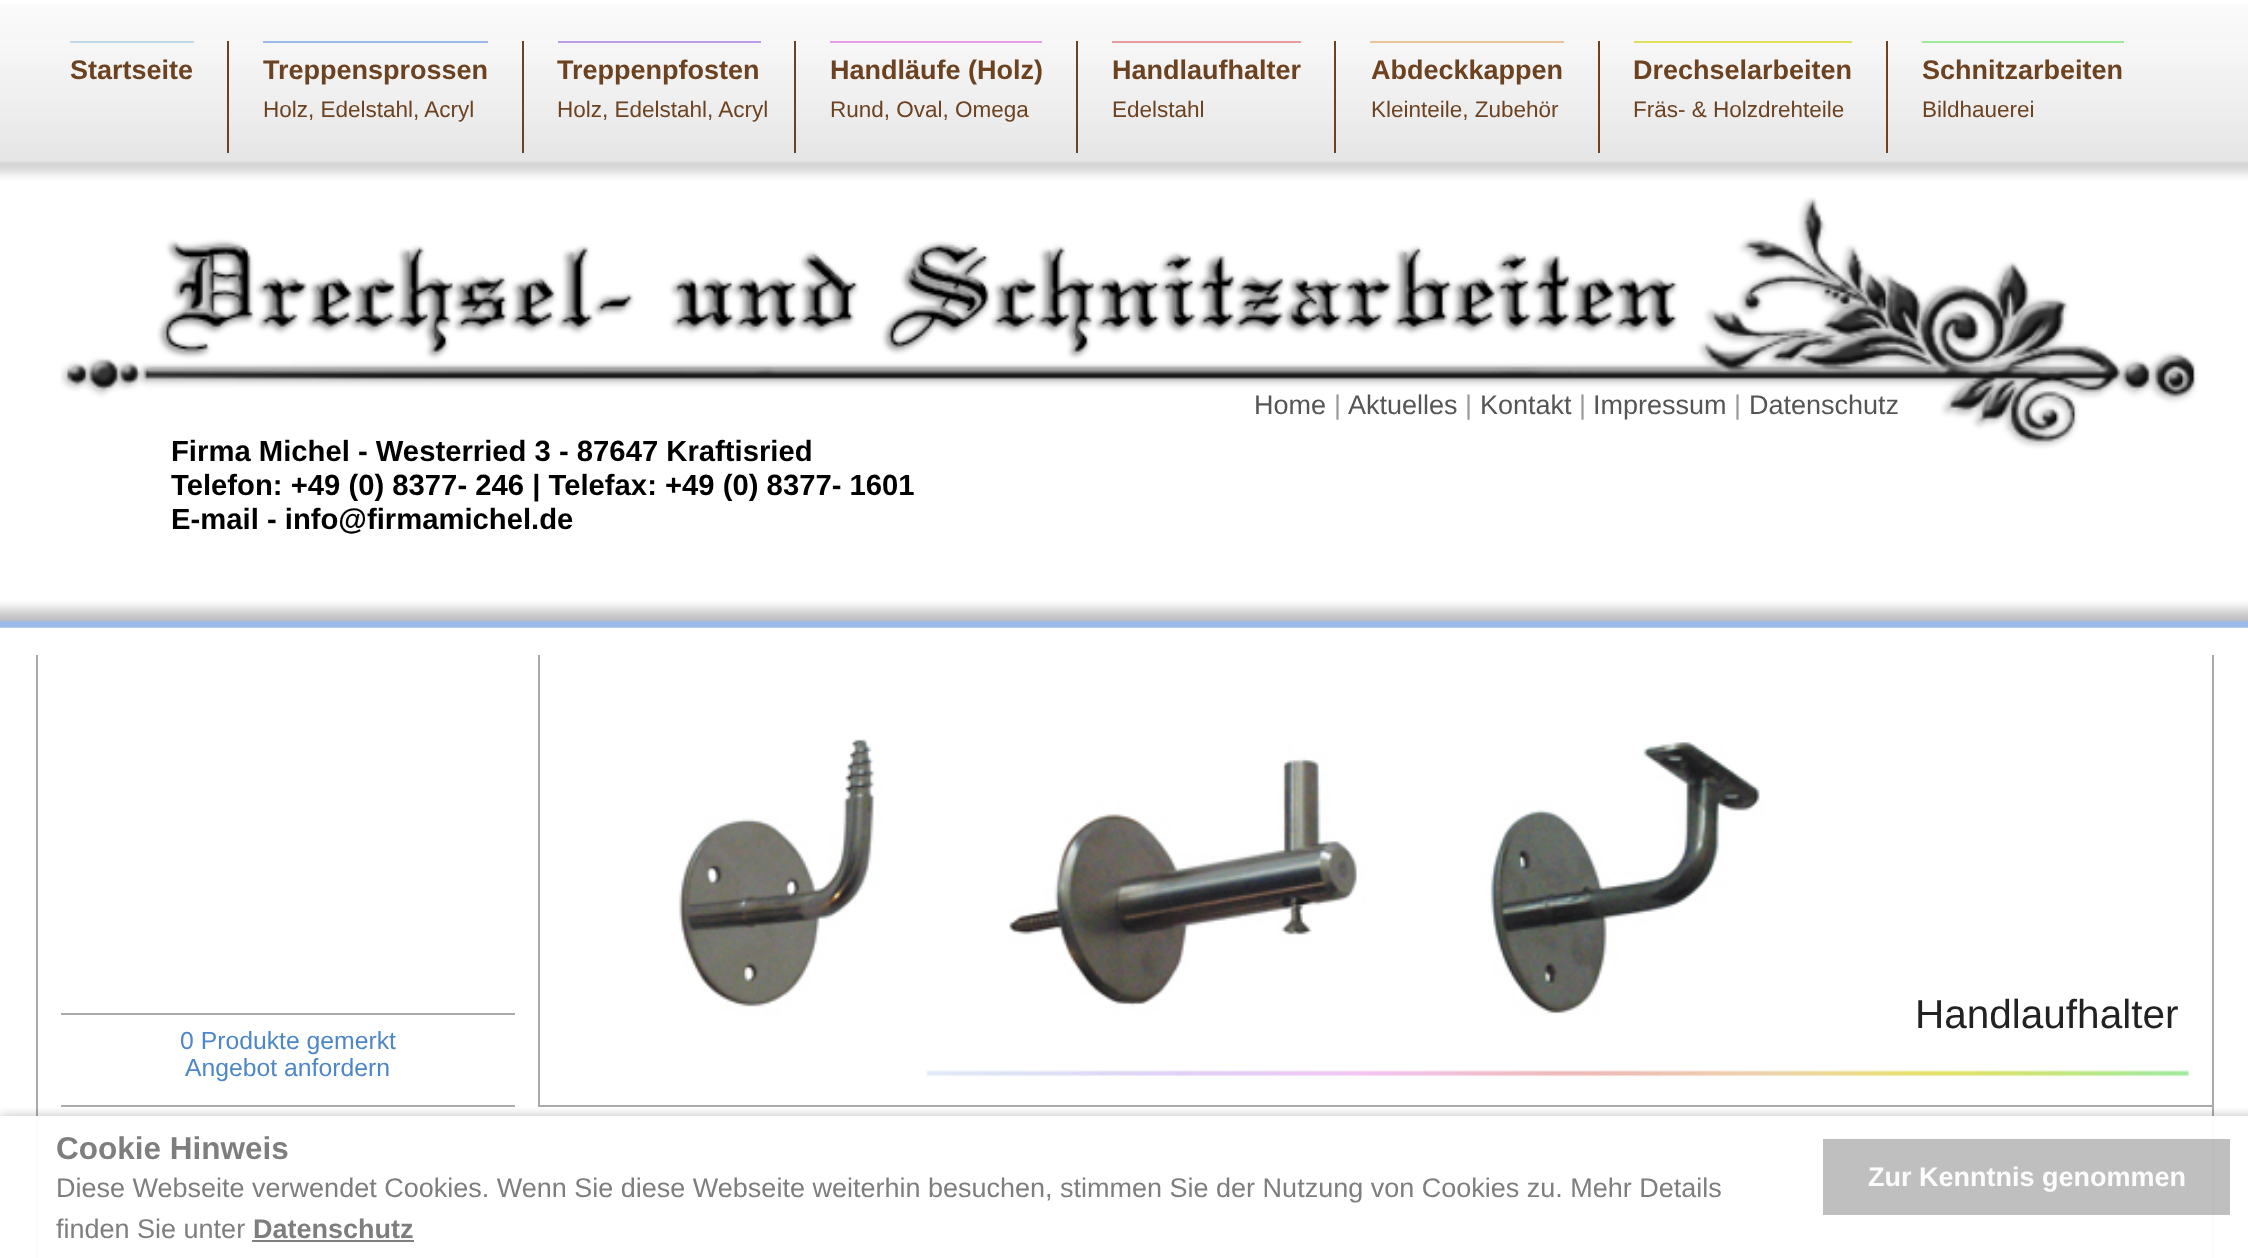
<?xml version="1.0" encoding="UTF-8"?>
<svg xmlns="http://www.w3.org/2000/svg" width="2248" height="1258">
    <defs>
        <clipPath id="clip1"><rect x="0" y="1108" width="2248" height="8"/></clipPath>
        <filter id="blur1" x="-50%" y="-200%" width="200%" height="500%"><feGaussianBlur stdDeviation="5.5"/></filter>
    </defs>
    <rect width="100%" height="100%" fill="#FFFFFF"/>
    <rect x="1823" y="1139" width="407" height="76" fill="#BFBFBF"/>
    <image x="0" y="4" width="2248" height="624" href="img_01.png"/>
    <rect x="70" y="41" width="124" height="2" fill="#BED7E9"/>
    <text x="70" y="79" font-family="Liberation Sans" font-size="27" font-weight="700" fill="#6C4220">Startseite</text>
    <rect x="227" y="41" width="2" height="112" fill="#6C4220"/>
    <rect x="263" y="41" width="225" height="2" fill="#9BBAE9"/>
    <text x="263" y="79" font-family="Liberation Sans" font-size="27" font-weight="700" fill="#6C4220">Treppensprossen</text>
    <text x="263" y="117" font-family="Liberation Sans" font-size="22.5" fill="#6C4220">Holz, Edelstahl, Acryl</text>
    <rect x="794" y="41" width="2" height="112" fill="#6C4220"/>
    <rect x="522" y="41" width="2" height="112" fill="#6C4220"/>
    <rect x="558" y="41" width="203" height="2" fill="#BE9BE9"/>
    <text x="557" y="79" font-family="Liberation Sans" font-size="27" font-weight="700" fill="#6C4220">Treppenpfosten</text>
    <text x="557" y="117" font-family="Liberation Sans" font-size="22.5" fill="#6C4220">Holz, Edelstahl, Acryl</text>
    <rect x="830" y="41" width="212" height="2" fill="#E99BE4"/>
    <text x="830" y="79" font-family="Liberation Sans" font-size="27" font-weight="700" fill="#6C4220">Handläufe (Holz)</text>
    <text x="830" y="117" font-family="Liberation Sans" font-size="22.5" fill="#6C4220">Rund, Oval, Omega</text>
    <rect x="1076" y="41" width="2" height="112" fill="#6C4220"/>
    <rect x="1112" y="41" width="189" height="2" fill="#E99B9B"/>
    <text x="1112" y="79" font-family="Liberation Sans" font-size="27" font-weight="700" fill="#6C4220">Handlaufhalter</text>
    <text x="1112" y="117" font-family="Liberation Sans" font-size="22.5" fill="#6C4220">Edelstahl</text>
    <rect x="1334" y="41" width="2" height="112" fill="#6C4220"/>
    <rect x="1370" y="41" width="194" height="2" fill="#E9C59B"/>
    <text x="1371" y="79" font-family="Liberation Sans" font-size="27" font-weight="700" fill="#6C4220">Abdeckkappen</text>
    <text x="1371" y="117" font-family="Liberation Sans" font-size="22.5" fill="#6C4220">Kleinteile, Zubehör</text>
    <rect x="1598" y="41" width="2" height="112" fill="#6C4220"/>
    <rect x="1634" y="41" width="218" height="2" fill="#DFDD59"/>
    <text x="1633" y="79" font-family="Liberation Sans" font-size="27" font-weight="700" fill="#6C4220">Drechselarbeiten</text>
    <text x="1633" y="117" font-family="Liberation Sans" font-size="22.5" fill="#6C4220">Fräs- &amp; Holzdrehteile</text>
    <rect x="1886" y="41" width="2" height="112" fill="#6C4220"/>
    <rect x="1922" y="41" width="202" height="2" fill="#9DE99B"/>
    <text x="1922" y="79" font-family="Liberation Sans" font-size="27" font-weight="700" fill="#6C4220">Schnitzarbeiten</text>
    <text x="1922" y="117" font-family="Liberation Sans" font-size="22.5" fill="#6C4220">Bildhauerei</text>
    <image x="60" y="197" width="2138" height="252" href="img_02.png"/>
    <text x="1254" y="414" font-family="Liberation Sans" font-size="27" fill="#555555">Home</text>
    <text x="1334" y="414" font-family="Liberation Sans" font-size="27" fill="#999999">|</text>
    <text x="1348" y="414" font-family="Liberation Sans" font-size="27" fill="#555555">Aktuelles</text>
    <text x="1465" y="414" font-family="Liberation Sans" font-size="27" fill="#999999">|</text>
    <text x="1480" y="414" font-family="Liberation Sans" font-size="27" fill="#555555">Kontakt</text>
    <text x="1579" y="414" font-family="Liberation Sans" font-size="27" fill="#999999">|</text>
    <text x="1593" y="414" font-family="Liberation Sans" font-size="27" fill="#555555">Impressum</text>
    <text x="1734" y="414" font-family="Liberation Sans" font-size="27" fill="#999999">|</text>
    <text x="1749" y="414" font-family="Liberation Sans" font-size="27" fill="#555555">Datenschutz</text>
    <text font-family="Liberation Sans" font-size="29.25" font-weight="700" fill="#000000">
        <tspan x="171" y="461">Firma Michel - Westerried 3 - 87647 Kraftisried</tspan>
        <tspan x="171" y="495">Telefon: +49 (0) 8377- 246 | Telefax: +49 (0) 8377- 1601</tspan>
        <tspan x="171" y="529">E-mail - info@firmamichel.de</tspan>
    </text>
    <rect x="2212" y="655" width="2" height="461" fill="#AAAAAA"/>
    <rect x="2212" y="1116" width="2" height="142" fill="#FBFBFB"/>
    <rect x="2212" y="1139" width="2" height="76" fill="#BCBCBC"/>
    <rect x="36" y="1116" width="2" height="142" fill="#FBFBFB"/>
    <image x="678" y="739" width="1512" height="338" href="img_03.png"/>
    <rect x="538" y="1105" width="1676" height="2" fill="#AAAAAA"/>
    <rect x="538" y="655" width="2" height="452" fill="#AAAAAA"/>
    <text x="1915" y="1028" font-family="Liberation Sans" font-size="40.5" fill="#222222">Handlaufhalter</text>
    <rect x="36" y="655" width="2" height="461" fill="#AAAAAA"/>
    <rect x="61" y="1013" width="454" height="2" fill="#AAAAAA"/>
    <rect x="61" y="1105" width="454" height="2" fill="#AAAAAA"/>
    <text x="180" y="1049" font-family="Liberation Sans" font-size="24.75" fill="#4D87C7">0 Produkte gemerkt</text>
    <text x="185" y="1076" font-family="Liberation Sans" font-size="24.75" fill="#4D87C7">Angebot anfordern</text>
    <g clip-path="url(#clip1)">
        <rect x="0" y="1116" width="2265" height="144" fill="#000000" fill-opacity="0.25" filter="url(#blur1)"/>
    </g>
    <text x="56" y="1159" font-family="Liberation Sans" font-size="31.5" font-weight="700" fill="#7E7E7E">Cookie Hinweis</text>
    <text font-family="Liberation Sans" font-size="27" fill="#7E7E7E">
        <tspan x="56" y="1197">Diese Webseite verwendet Cookies. Wenn Sie diese Webseite weiterhin besuchen, stimmen Sie der Nutzung von Cookies zu. Mehr Details</tspan>
        <tspan x="56" y="1238">finden Sie unter</tspan>
    </text>
    <text x="253" y="1238" font-family="Liberation Sans" font-size="27" font-weight="700" fill="#7E7E7E">Datenschutz</text>
    <rect x="252" y="1240" width="162" height="2" fill="#7F7F7F"/>
    <text x="1868" y="1186" font-family="Liberation Sans" font-size="27" font-weight="700" fill="#FCFCFC">Zur Kenntnis genommen</text>
</svg>
